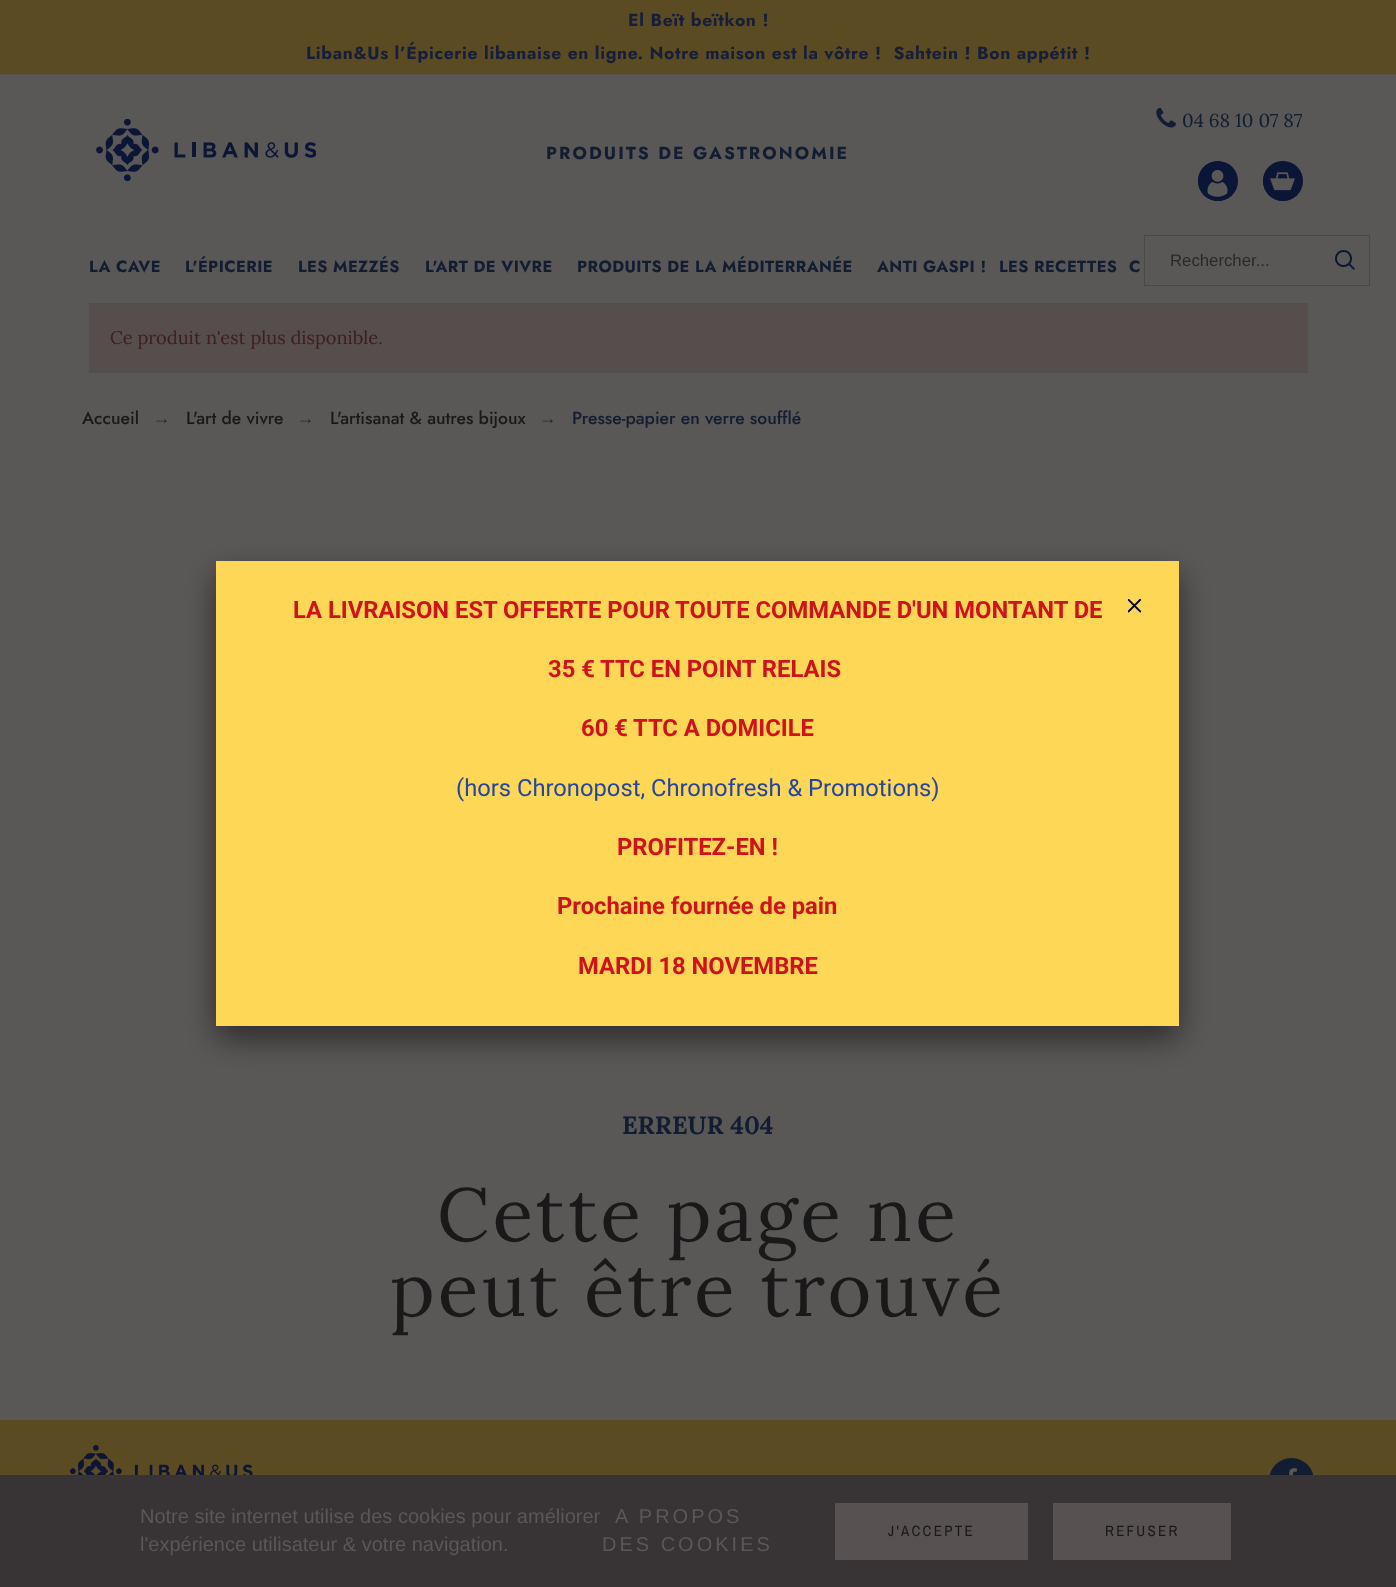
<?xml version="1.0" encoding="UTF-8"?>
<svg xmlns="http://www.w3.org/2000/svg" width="1396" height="1587">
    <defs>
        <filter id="blur1" x="-50%" y="-200%" width="200%" height="500%"><feGaussianBlur stdDeviation="15.5"/></filter>
    </defs>
    <rect width="100%" height="100%" fill="#5A5757"/>
    <rect x="0" y="0" width="1396" height="74" fill="#5A4B23"/>
    <rect x="0" y="74" width="1396" height="1" fill="#555252"/>
    <text x="628" y="26" font-family="Jost" font-size="17.5" font-weight="700" letter-spacing="0.62" fill="#161E3B">El Beït beïtkon !</text>
    <text x="306" y="59" font-family="Jost" font-size="17.5" font-weight="700" letter-spacing="0.62" fill="#161E3B" xml:space="preserve">Liban&amp;Us l’Épicerie libanaise en ligne. Notre maison est la vôtre !  Sahtein ! Bon appétit !</text>
    <image x="96" y="119" width="220" height="62" href="img_01.png"/>
    <text x="546" y="159" font-family="Jost" font-size="17.5" font-weight="700" letter-spacing="2.1" fill="#121D31">PRODUITS DE GASTRONOMIE</text>
    <image x="1156" y="107" width="20" height="21" href="img_02.png"/>
    <text x="1182" y="127" font-family="Lora" font-size="18.75" fill="#121D31">04 68 10 07 87</text>
    <circle cx="1218" cy="181" r="20" fill="#121D31"/>
    <image x="1198" y="161" width="40" height="40" href="img_03.png"/>
    <circle cx="1283" cy="181" r="20" fill="#121D31"/>
    <image x="1263" y="161" width="40" height="40" href="img_04.png"/>
    <text x="89" y="272" font-family="Jost" font-size="16.25" font-weight="700" letter-spacing="0.4" fill="#121D31">LA CAVE</text>
    <text x="185" y="272" font-family="Jost" font-size="16.25" font-weight="700" letter-spacing="0.4" fill="#121D31">L'ÉPICERIE</text>
    <text x="298" y="272" font-family="Jost" font-size="16.25" font-weight="700" letter-spacing="0.4" fill="#121D31">LES MEZZÉS</text>
    <text x="425" y="272" font-family="Jost" font-size="16.25" font-weight="700" letter-spacing="0.4" fill="#121D31">L'ART DE VIVRE</text>
    <text x="577" y="272" font-family="Jost" font-size="16.25" font-weight="700" letter-spacing="0.4" fill="#121D31">PRODUITS DE LA MÉDITERRANÉE</text>
    <text x="877" y="272" font-family="Jost" font-size="16.25" font-weight="700" letter-spacing="0.4" fill="#121D31">ANTI GASPI !</text>
    <text x="999" y="272" font-family="Jost" font-size="16.25" font-weight="700" letter-spacing="0.4" fill="#121D31">LES RECETTES</text>
    <text x="1129" y="272" font-family="Jost" font-size="16.25" font-weight="700" letter-spacing="0.4" fill="#121D31">C</text>
    <rect x="1144.5" y="235.5" width="225" height="50" fill="none" stroke="#4A4848"/>
    <text x="1170" y="266" font-family="Liberation Sans" font-size="16.75" fill="#2B2828">Rechercher...</text>
    <image x="1335" y="250" width="20" height="20" href="img_05.png"/>
    <rect x="89" y="303" width="1219" height="70" fill="#564D4D"/>
    <text x="110" y="344" font-family="Lora" font-size="18.25" fill="#3F1D1D">Ce produit n'est plus disponible.</text>
    <text x="82" y="424" font-family="Jost" font-size="17.5" font-weight="500" fill="#1A1919">Accueil</text>
    <text x="153" y="424" font-family="Liberation Serif" font-size="17.5" fill="#2B2828">→</text>
    <text x="186" y="424" font-family="Jost" font-size="17.5" font-weight="500" fill="#1A1919">L'art de vivre</text>
    <text x="297" y="424" font-family="Liberation Serif" font-size="17.5" fill="#2B2828">→</text>
    <text x="330" y="424" font-family="Jost" font-size="17.5" font-weight="500" fill="#1A1919">L'artisanat &amp; autres bijoux</text>
    <text x="539" y="424" font-family="Liberation Serif" font-size="17.5" fill="#2B2828">→</text>
    <text x="572" y="424" font-family="Jost" font-size="17.5" font-weight="500" fill="#121D31">Presse-papier en verre soufflé</text>
    <text x="622" y="1134" font-family="Lora" font-size="25" font-weight="700" fill="#121D31">ERREUR 404</text>
    <text x="437" y="1241" font-family="Lora" font-size="75" letter-spacing="3" fill="#1A1919">Cette page ne</text>
    <text x="390" y="1316" font-family="Lora" font-size="75" letter-spacing="3" fill="#1A1919">peut être trouvé</text>
    <rect x="0" y="1420" width="1396" height="55" fill="#5A4B23"/>
    <image x="70" y="1445" width="183" height="30" href="img_06.png"/>
    <circle cx="1291.5" cy="1480.5" r="22.5" fill="#121D31"/>
    <image x="1289" y="1468" width="8" height="7" href="img_07.png"/>
    <rect x="216" y="574" width="963" height="465" rx="5" fill="#000000" fill-opacity="0.5" filter="url(#blur1)"/>
    <rect x="216" y="561" width="963" height="465" fill="#FED756"/>
    <text x="293" y="618" font-family="Roboto" font-size="23.75" font-weight="700" fill="#D0121A">LA LIVRAISON EST OFFERTE POUR TOUTE COMMANDE D'UN MONTANT DE</text>
    <text x="548" y="677" font-family="Roboto" font-size="23.75" font-weight="700" fill="#D0121A">35 € TTC EN POINT RELAIS</text>
    <text x="581" y="736" font-family="Roboto" font-size="23.75" font-weight="700" fill="#D0121A">60 € TTC A DOMICILE</text>
    <text x="456" y="796" font-family="Roboto" font-size="23.75" fill="#2445A2">(hors Chronopost, Chronofresh &amp; Promotions)</text>
    <text x="617" y="855" font-family="Roboto" font-size="23.75" font-weight="700" fill="#D0121A">PROFITEZ-EN !</text>
    <text x="557" y="914" font-family="Roboto" font-size="23.75" font-weight="700" fill="#D0121A">Prochaine fournée de pain</text>
    <text x="578" y="974" font-family="Roboto" font-size="23.75" font-weight="700" fill="#D0121A">MARDI 18 NOVEMBRE</text>
    <image x="1128" y="599" width="13" height="14" href="img_08.png"/>
    <rect x="0" y="1475" width="1396" height="112" fill="#383435"/>
    <text font-family="Liberation Sans" font-size="20" fill="#5A5757">
        <tspan x="140" y="1523">Notre site internet utilise des cookies pour améliorer</tspan>
        <tspan x="140" y="1551">l'expérience utilisateur &amp; votre navigation.</tspan>
    </text>
    <text x="615" y="1523" font-family="Liberation Sans" font-size="20" letter-spacing="3" fill="#5A5757">A PROPOS</text>
    <text x="602" y="1551" font-family="Liberation Sans" font-size="20" letter-spacing="3" fill="#5A5757">DES COOKIES</text>
    <rect x="835" y="1503" width="193" height="57" fill="#575251"/>
    <text x="888" y="1536" font-family="Archivo Narrow" font-size="15" letter-spacing="2.25" fill="#1A1919">J'ACCEPTE</text>
    <rect x="1053" y="1503" width="178" height="57" fill="#575251"/>
    <text x="1105" y="1536" font-family="Archivo Narrow" font-size="15" letter-spacing="2.25" fill="#1A1919">REFUSER</text>
</svg>
